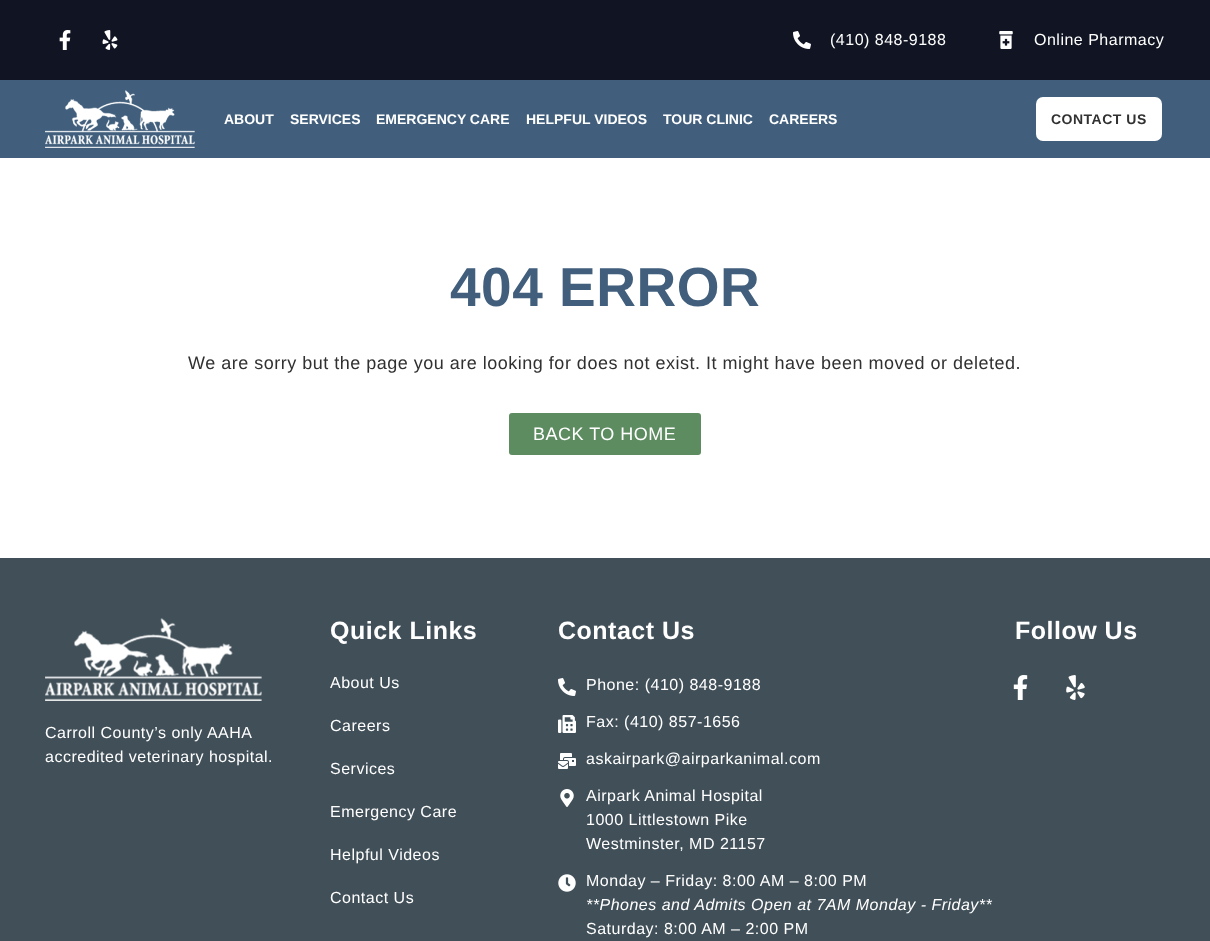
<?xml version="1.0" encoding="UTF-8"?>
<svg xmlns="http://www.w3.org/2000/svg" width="1210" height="941">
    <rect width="100%" height="100%" fill="#FFFFFF"/>
    <rect x="0" y="0" width="1210" height="80" fill="#111422"/>
    <image x="59" y="30" width="12" height="20" href="img_01.png"/>
    <image x="102" y="30" width="16" height="20" href="img_02.png"/>
    <image x="793" y="31" width="18" height="18" href="img_03.png"/>
    <text x="830" y="45" font-family="Liberation Sans" font-size="16" letter-spacing="0.5" fill="#FFFFFF">(410) 848-9188</text>
    <image x="999" y="31" width="14" height="18" href="img_04.png"/>
    <text x="1034" y="45" font-family="Liberation Sans" font-size="16" letter-spacing="0.5" fill="#FFFFFF">Online Pharmacy</text>
    <rect x="0" y="80" width="1210" height="78" fill="#415F7C"/>
    <image x="45" y="90" width="150" height="58" href="img_05.png"/>
    <text x="224" y="124" font-family="Liberation Sans" font-size="14" font-weight="700" fill="#FFFFFF">ABOUT</text>
    <text x="290" y="124" font-family="Liberation Sans" font-size="14" font-weight="700" fill="#FFFFFF">SERVICES</text>
    <text x="376" y="124" font-family="Liberation Sans" font-size="14" font-weight="700" fill="#FFFFFF">EMERGENCY CARE</text>
    <text x="526" y="124" font-family="Liberation Sans" font-size="14" font-weight="700" fill="#FFFFFF">HELPFUL VIDEOS</text>
    <text x="663" y="124" font-family="Liberation Sans" font-size="14" font-weight="700" fill="#FFFFFF">TOUR CLINIC</text>
    <text x="769" y="124" font-family="Liberation Sans" font-size="14" font-weight="700" fill="#FFFFFF">CAREERS</text>
    <rect x="1036" y="97" width="126" height="44" rx="7" fill="#FFFFFF"/>
    <text x="1051" y="124" font-family="Liberation Sans" font-size="14" font-weight="700" letter-spacing="0.5" fill="#313131">CONTACT US</text>
    <text x="450" y="306" font-family="Liberation Sans" font-size="55" font-weight="700" letter-spacing="0.5" fill="#415F7C">404 ERROR</text>
    <text x="188" y="369" font-family="Liberation Sans" font-size="18" letter-spacing="0.5" fill="#313131">We are sorry but the page you are looking for does not exist. It might have been moved or deleted.</text>
    <rect x="509" y="413" width="192" height="42" rx="3" fill="#5E8C61"/>
    <text x="533" y="440" font-family="Liberation Sans" font-size="18" letter-spacing="0.5" fill="#FFFFFF">BACK TO HOME</text>
    <rect x="0" y="558" width="1210" height="383" fill="#404F58"/>
    <image x="45" y="618" width="217" height="83" href="img_06.png"/>
    <text font-family="Liberation Sans" font-size="16" letter-spacing="0.5" fill="#FFFFFF">
        <tspan x="45" y="738">Carroll County’s only AAHA</tspan>
        <tspan x="45" y="762">accredited veterinary hospital.</tspan>
    </text>
    <text x="330" y="639" font-family="Liberation Sans" font-size="25" font-weight="700" letter-spacing="0.5" fill="#FFFFFF">Quick Links</text>
    <text x="330" y="688" font-family="Liberation Sans" font-size="16" letter-spacing="0.5" fill="#FFFFFF">About Us</text>
    <text x="330" y="731" font-family="Liberation Sans" font-size="16" letter-spacing="0.5" fill="#FFFFFF">Careers</text>
    <text x="330" y="774" font-family="Liberation Sans" font-size="16" letter-spacing="0.5" fill="#FFFFFF">Services</text>
    <text x="330" y="817" font-family="Liberation Sans" font-size="16" letter-spacing="0.5" fill="#FFFFFF">Emergency Care</text>
    <text x="330" y="860" font-family="Liberation Sans" font-size="16" letter-spacing="0.5" fill="#FFFFFF">Helpful Videos</text>
    <text x="330" y="903" font-family="Liberation Sans" font-size="16" letter-spacing="0.5" fill="#FFFFFF">Contact Us</text>
    <text x="558" y="639" font-family="Liberation Sans" font-size="25" font-weight="700" letter-spacing="0.5" fill="#FFFFFF">Contact Us</text>
    <image x="558" y="678" width="18" height="18" href="img_07.png"/>
    <text x="586" y="690" font-family="Liberation Sans" font-size="16" letter-spacing="0.5" fill="#FFFFFF">Phone: (410) 848-9188</text>
    <image x="558" y="715" width="18" height="18" href="img_08.png"/>
    <text x="586" y="727" font-family="Liberation Sans" font-size="16" letter-spacing="0.5" fill="#FFFFFF">Fax: (410) 857-1656</text>
    <image x="558" y="753" width="18" height="16" href="img_09.png"/>
    <text x="586" y="764" font-family="Liberation Sans" font-size="16" letter-spacing="0.5" fill="#FFFFFF">askairpark@airparkanimal.com</text>
    <image x="560" y="789" width="14" height="18" href="img_10.png"/>
    <text font-family="Liberation Sans" font-size="16" letter-spacing="0.5" fill="#FFFFFF">
        <tspan x="586" y="801">Airpark Animal Hospital</tspan>
        <tspan x="586" y="825">1000 Littlestown Pike</tspan>
        <tspan x="586" y="849">Westminster, MD 21157</tspan>
    </text>
    <image x="558" y="874" width="18" height="18" href="img_11.png"/>
    <text x="586" y="886" font-family="Liberation Sans" font-size="16" letter-spacing="0.5" fill="#FFFFFF">Monday – Friday: 8:00 AM – 8:00 PM</text>
    <text x="586" y="910" font-family="Liberation Sans" font-size="16" font-style="italic" letter-spacing="0.5" fill="#FFFFFF">**Phones and Admits Open at 7AM Monday - Friday**</text>
    <text x="586" y="934" font-family="Liberation Sans" font-size="16" letter-spacing="0.5" fill="#FFFFFF">Saturday: 8:00 AM – 2:00 PM</text>
    <text x="1015" y="639" font-family="Liberation Sans" font-size="25" font-weight="700" letter-spacing="0.5" fill="#FFFFFF">Follow Us</text>
    <image x="1013" y="675" width="15" height="25" href="img_12.png"/>
    <image x="1066" y="675" width="19" height="25" href="img_13.png"/>
</svg>
